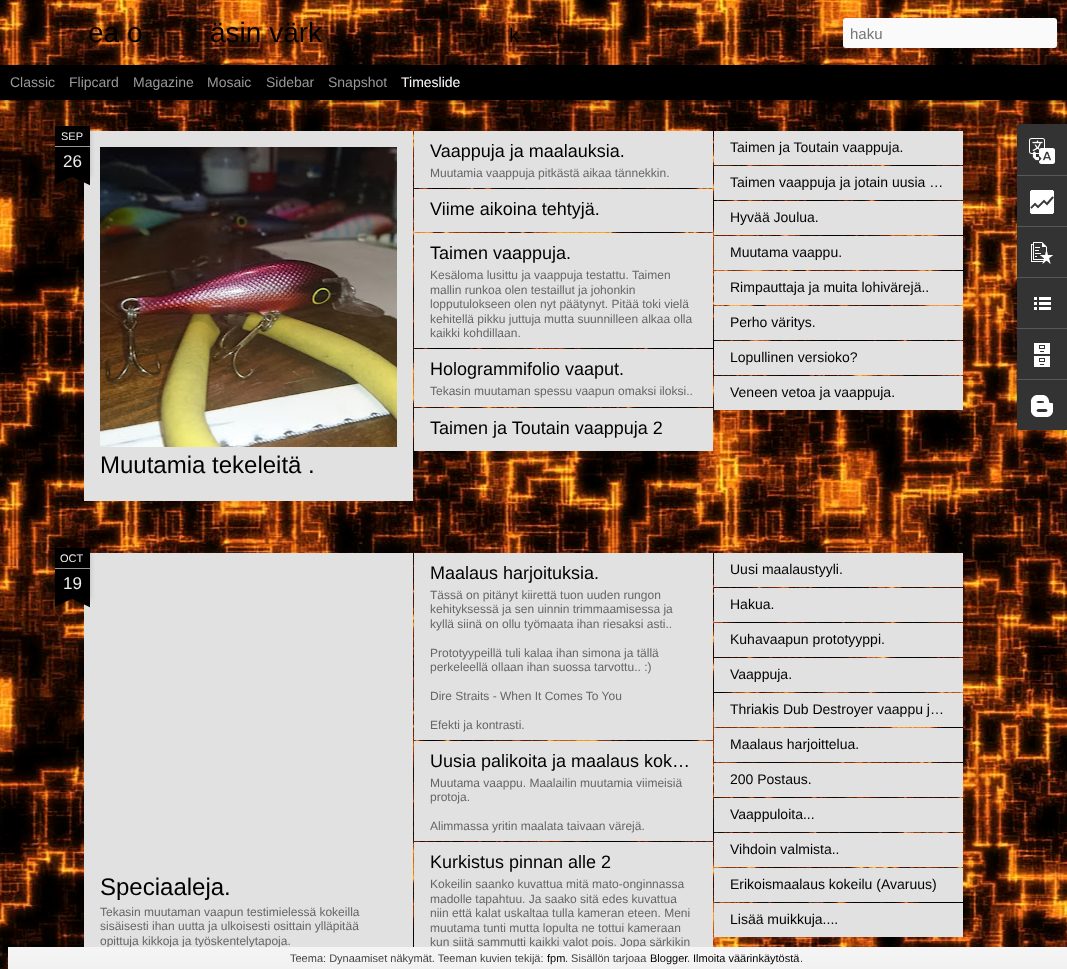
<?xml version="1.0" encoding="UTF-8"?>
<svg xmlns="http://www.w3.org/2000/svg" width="1067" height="969">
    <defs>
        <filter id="blur1" x="-50%" y="-200%" width="200%" height="500%"><feGaussianBlur stdDeviation="4"/></filter>
        <filter id="blur2" x="-50%" y="-200%" width="200%" height="500%"><feGaussianBlur stdDeviation="2.5"/></filter>
        <clipPath id="clip1"><rect x="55" y="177" width="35" height="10"/></clipPath>
        <clipPath id="clip2"><rect x="55" y="177" width="35" height="10"/></clipPath>
        <clipPath id="clip3"><rect x="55" y="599" width="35" height="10"/></clipPath>
        <clipPath id="clip4"><rect x="55" y="599" width="35" height="10"/></clipPath>
        <filter id="blur3" x="-50%" y="-200%" width="200%" height="500%"><feGaussianBlur stdDeviation="1.5"/></filter>
        <linearGradient id="g1" gradientUnits="userSpaceOnUse" x1="547" y1="947" x2="547" y2="969"><stop offset="0" stop-color="#F5F5F5"/><stop offset="1" stop-color="#F1F1F1"/></linearGradient>
    </defs>
    <rect width="100%" height="100%" fill="#FFFFFF"/>
    <image x="0" y="100" width="1067" height="869" href="img_01.png"/>
    <rect x="0" y="65" width="1067" height="35" fill="#000000" fill-opacity="0.5" filter="url(#blur1)"/>
    <image x="0" y="0" width="1067" height="65" href="img_02.png"/>
    <text x="88" y="42" font-family="Liberation Sans" font-size="28" fill="#000000">ea o</text>
    <text x="210" y="42" font-family="Liberation Sans" font-size="28" fill="#000000">äsin värk</text>
    <text x="509" y="42" font-family="Liberation Sans" font-size="20" fill="#000000">k</text>
    <text x="556" y="42" font-family="Liberation Sans" font-size="20" fill="#000000">t</text>
    <text x="599" y="42" font-family="Liberation Sans" font-size="20" fill="#000000">.</text>
    <rect x="843" y="18" width="214" height="30" rx="3" fill="#FAFAFA"/>
    <text x="850" y="39" font-family="Liberation Sans" font-size="15" fill="#757575">haku</text>
    <rect x="0" y="65" width="1067" height="35" fill="#000000"/>
    <text x="10" y="87" font-family="Liberation Sans" font-size="14" fill="#999999">Classic</text>
    <text x="69" y="87" font-family="Liberation Sans" font-size="14" fill="#999999">Flipcard</text>
    <text x="133" y="87" font-family="Liberation Sans" font-size="14" fill="#999999">Magazine</text>
    <text x="207" y="87" font-family="Liberation Sans" font-size="14" fill="#999999">Mosaic</text>
    <text x="266" y="87" font-family="Liberation Sans" font-size="14" fill="#999999">Sidebar</text>
    <text x="328" y="87" font-family="Liberation Sans" font-size="14" fill="#999999">Snapshot</text>
    <text x="401" y="87" font-family="Liberation Sans" font-size="14" fill="#FFFFFF">Timeslide</text>
    <rect x="84" y="131" width="329" height="370" fill="#E1E1E1"/>
    <rect x="55" y="147" width="35" height="30" fill="#000000" fill-opacity="0.2" filter="url(#blur2)"/>
    <rect x="55" y="147" width="35" height="30" fill="#000000"/>
    <rect x="55" y="126" width="35" height="21" rx="1" fill="#000000" fill-opacity="0.2" filter="url(#blur2)"/>
    <path d="M 56 126 H 89 C 89.5 126 90 126.5 90 127 V 147 H 55 V 127 C 55 126.5 55.5 126 56 126 Z" fill="#000000"/>
    <rect x="55" y="146" width="35" height="1" fill="#999999"/>
    <text x="61" y="140" font-family="Liberation Sans" font-size="11" fill="#EEEEEE">SEP</text>
    <text x="63" y="167" font-family="Liberation Sans" font-size="17" fill="#EEEEEE">26</text>
    <image x="100" y="147" width="297" height="300" href="img_03.png"/>
    <g clip-path="url(#clip1)">
        <rect x="46" y="167" width="50" height="10" fill="#000000" fill-opacity="0.2" filter="url(#blur2)"/>
    </g>
    <g clip-path="url(#clip2)">
        <path d="M 46 178 L 91 157 L 95 166 L 50 187 Z" fill="#000000"/>
    </g>
    <g clip-path="url(#clip1)">
        <rect x="49" y="167" width="50" height="10" fill="#000000" fill-opacity="0.2" filter="url(#blur2)"/>
    </g>
    <g clip-path="url(#clip2)">
        <path d="M 53 157 L 98 178 L 94 187 L 49 166 Z" fill="#000000"/>
    </g>
    <text x="100" y="473" font-family="Liberation Sans" font-size="24" fill="#000000">Muutamia tekeleitä .</text>
    <rect x="414" y="131" width="299" height="57" fill="#E1E1E1"/>
    <text x="430" y="157" font-family="Liberation Sans" font-size="18" fill="#000000">Vaappuja ja maalauksia.</text>
    <text x="430" y="177" font-family="Liberation Sans" font-size="12" fill="#666666">Muutamia vaappuja pitkästä aikaa tännekkin.</text>
    <rect x="414" y="189" width="299" height="43" fill="#E1E1E1"/>
    <text x="430" y="215" font-family="Liberation Sans" font-size="18" fill="#000000">Viime aikoina tehtyjä.</text>
    <rect x="414" y="233" width="299" height="115" fill="#E1E1E1"/>
    <text x="430" y="259" font-family="Liberation Sans" font-size="18" fill="#000000">Taimen vaappuja.</text>
    <text font-family="Liberation Sans" font-size="12" fill="#666666">
        <tspan x="430" y="279">Kesäloma lusittu ja vaappuja testattu. Taimen</tspan>
        <tspan x="430" y="294">mallin runkoa olen testaillut ja johonkin</tspan>
        <tspan x="430" y="308">lopputulokseen olen nyt päätynyt. Pitää toki vielä</tspan>
        <tspan x="430" y="323">kehitellä pikku juttuja mutta suunnilleen alkaa olla</tspan>
        <tspan x="430" y="337">kaikki kohdillaan.</tspan>
    </text>
    <rect x="414" y="349" width="299" height="58" fill="#E1E1E1"/>
    <text x="430" y="375" font-family="Liberation Sans" font-size="18" fill="#000000">Hologrammifolio vaaput.</text>
    <text x="430" y="395" font-family="Liberation Sans" font-size="12" fill="#666666">Tekasin muutaman spessu vaapun omaksi iloksi..</text>
    <rect x="414" y="408" width="299" height="43" fill="#E1E1E1"/>
    <text x="430" y="434" font-family="Liberation Sans" font-size="18" fill="#000000">Taimen ja Toutain vaappuja 2</text>
    <rect x="714" y="131" width="249" height="34" fill="#E1E1E1"/>
    <text x="730" y="152" font-family="Liberation Sans" font-size="14" fill="#000000">Taimen ja Toutain vaappuja.</text>
    <rect x="714" y="166" width="249" height="34" fill="#E1E1E1"/>
    <text x="730" y="187" font-family="Liberation Sans" font-size="14" fill="#000000">Taimen vaappuja ja jotain uusia …</text>
    <rect x="714" y="201" width="249" height="34" fill="#E1E1E1"/>
    <text x="730" y="222" font-family="Liberation Sans" font-size="14" fill="#000000">Hyvää Joulua.</text>
    <rect x="714" y="236" width="249" height="34" fill="#E1E1E1"/>
    <text x="730" y="257" font-family="Liberation Sans" font-size="14" fill="#000000">Muutama vaappu.</text>
    <rect x="714" y="271" width="249" height="34" fill="#E1E1E1"/>
    <text x="730" y="292" font-family="Liberation Sans" font-size="14" fill="#000000">Rimpauttaja ja muita lohivärejä..</text>
    <rect x="714" y="306" width="249" height="34" fill="#E1E1E1"/>
    <text x="730" y="327" font-family="Liberation Sans" font-size="14" fill="#000000">Perho väritys.</text>
    <rect x="714" y="341" width="249" height="34" fill="#E1E1E1"/>
    <text x="730" y="362" font-family="Liberation Sans" font-size="14" fill="#000000">Lopullinen versioko?</text>
    <rect x="714" y="376" width="249" height="34" fill="#E1E1E1"/>
    <text x="730" y="397" font-family="Liberation Sans" font-size="14" fill="#000000">Veneen vetoa ja vaappuja.</text>
    <rect x="84" y="553" width="329" height="394" fill="#E1E1E1"/>
    <rect x="55" y="569" width="35" height="30" fill="#000000" fill-opacity="0.2" filter="url(#blur2)"/>
    <rect x="55" y="569" width="35" height="30" fill="#000000"/>
    <rect x="55" y="548" width="35" height="21" rx="1" fill="#000000" fill-opacity="0.2" filter="url(#blur2)"/>
    <path d="M 56 548 H 89 C 89.5 548 90 548.5 90 549 V 569 H 55 V 549 C 55 548.5 55.5 548 56 548 Z" fill="#000000"/>
    <rect x="55" y="568" width="35" height="1" fill="#999999"/>
    <text x="60" y="562" font-family="Liberation Sans" font-size="11" fill="#EEEEEE">OCT</text>
    <text x="63" y="589" font-family="Liberation Sans" font-size="17" fill="#EEEEEE">19</text>
    <g clip-path="url(#clip3)">
        <rect x="46" y="589" width="50" height="10" fill="#000000" fill-opacity="0.2" filter="url(#blur2)"/>
    </g>
    <g clip-path="url(#clip4)">
        <path d="M 46 600 L 91 579 L 95 588 L 50 609 Z" fill="#000000"/>
    </g>
    <g clip-path="url(#clip3)">
        <rect x="49" y="589" width="50" height="10" fill="#000000" fill-opacity="0.2" filter="url(#blur2)"/>
    </g>
    <g clip-path="url(#clip4)">
        <path d="M 53 579 L 98 600 L 94 609 L 49 588 Z" fill="#000000"/>
    </g>
    <text x="100" y="895" font-family="Liberation Sans" font-size="24" fill="#000000">Speciaaleja.</text>
    <text font-family="Liberation Sans" font-size="12" fill="#666666">
        <tspan x="100" y="916">Tekasin muutaman vaapun testimielessä kokeilla</tspan>
        <tspan x="100" y="930">sisäisesti ihan uutta ja ulkoisesti osittain ylläpitää</tspan>
        <tspan x="100" y="945">opittuja kikkoja ja työskentelytapoja.</tspan>
    </text>
    <rect x="414" y="553" width="299" height="187" fill="#E1E1E1"/>
    <text x="430" y="579" font-family="Liberation Sans" font-size="18" fill="#000000">Maalaus harjoituksia.</text>
    <text font-family="Liberation Sans" font-size="12" fill="#666666">
        <tspan x="430" y="599">Tässä on pitänyt kiirettä tuon uuden rungon</tspan>
        <tspan x="430" y="613">kehityksessä ja sen uinnin trimmaamisessa ja</tspan>
        <tspan x="430" y="628">kyllä siinä on ollu työmaata ihan riesaksi asti..</tspan>
    </text>
    <text font-family="Liberation Sans" font-size="12" fill="#666666">
        <tspan x="430" y="657">Prototyypeillä tuli kalaa ihan simona ja tällä</tspan>
        <tspan x="430" y="671">perkeleellä ollaan ihan suossa tarvottu.. :)</tspan>
    </text>
    <text x="430" y="700" font-family="Liberation Sans" font-size="12" fill="#666666">Dire Straits - When It Comes To You</text>
    <text x="430" y="729" font-family="Liberation Sans" font-size="12" fill="#666666">Efekti ja kontrasti.</text>
    <rect x="414" y="741" width="299" height="100" fill="#E1E1E1"/>
    <text x="430" y="767" font-family="Liberation Sans" font-size="18" fill="#000000">Uusia palikoita ja maalaus kok…</text>
    <text font-family="Liberation Sans" font-size="12" fill="#666666">
        <tspan x="430" y="787">Muutama vaappu. Maalailin muutamia viimeisiä</tspan>
        <tspan x="430" y="801">protoja.</tspan>
    </text>
    <text x="430" y="830" font-family="Liberation Sans" font-size="12" fill="#666666">Alimmassa yritin maalata taivaan värejä.</text>
    <rect x="414" y="842" width="299" height="105" fill="#E1E1E1"/>
    <text x="430" y="868" font-family="Liberation Sans" font-size="18" fill="#000000">Kurkistus pinnan alle 2</text>
    <text font-family="Liberation Sans" font-size="12" fill="#666666">
        <tspan x="430" y="888">Kokeilin saanko kuvattua mitä mato-onginnassa</tspan>
        <tspan x="430" y="903">madolle tapahtuu. Ja saako sitä edes kuvattua</tspan>
        <tspan x="430" y="917">niin että kalat uskaltaa tulla kameran eteen. Meni</tspan>
        <tspan x="430" y="932">muutama tunti mutta lopulta ne tottui kameraan</tspan>
        <tspan x="430" y="946">kun siitä sammutti kaikki valot pois. Jopa särkikin</tspan>
    </text>
    <rect x="714" y="553" width="249" height="34" fill="#E1E1E1"/>
    <text x="730" y="574" font-family="Liberation Sans" font-size="14" fill="#000000">Uusi maalaustyyli.</text>
    <rect x="714" y="588" width="249" height="34" fill="#E1E1E1"/>
    <text x="730" y="609" font-family="Liberation Sans" font-size="14" fill="#000000">Hakua.</text>
    <rect x="714" y="623" width="249" height="34" fill="#E1E1E1"/>
    <text x="730" y="644" font-family="Liberation Sans" font-size="14" fill="#000000">Kuhavaapun prototyyppi.</text>
    <rect x="714" y="658" width="249" height="34" fill="#E1E1E1"/>
    <text x="730" y="679" font-family="Liberation Sans" font-size="14" fill="#000000">Vaappuja.</text>
    <rect x="714" y="693" width="249" height="34" fill="#E1E1E1"/>
    <text x="730" y="714" font-family="Liberation Sans" font-size="14" fill="#000000">Thriakis Dub Destroyer vaappu j…</text>
    <rect x="714" y="728" width="249" height="34" fill="#E1E1E1"/>
    <text x="730" y="749" font-family="Liberation Sans" font-size="14" fill="#000000">Maalaus harjoittelua.</text>
    <rect x="714" y="763" width="249" height="34" fill="#E1E1E1"/>
    <text x="730" y="784" font-family="Liberation Sans" font-size="14" fill="#000000">200 Postaus.</text>
    <rect x="714" y="798" width="249" height="34" fill="#E1E1E1"/>
    <text x="730" y="819" font-family="Liberation Sans" font-size="14" fill="#000000">Vaappuloita...</text>
    <rect x="714" y="833" width="249" height="34" fill="#E1E1E1"/>
    <text x="730" y="854" font-family="Liberation Sans" font-size="14" fill="#000000">Vihdoin valmista..</text>
    <rect x="714" y="868" width="249" height="34" fill="#E1E1E1"/>
    <text x="730" y="889" font-family="Liberation Sans" font-size="14" fill="#000000">Erikoismaalaus kokeilu (Avaruus)</text>
    <rect x="714" y="903" width="249" height="34" fill="#E1E1E1"/>
    <text x="730" y="924" font-family="Liberation Sans" font-size="14" fill="#000000">Lisää muikkuja....</text>
    <rect x="1017" y="125" width="50" height="306" rx="2" fill="#000000" fill-opacity="0.3" filter="url(#blur3)"/>
    <path d="M 1019 124 H 1067 V 430 H 1019 C 1018 430 1017 429 1017 428 V 126 C 1017 125 1018 124 1019 124 Z" fill="#333333"/>
    <path d="M 1019 124 H 1067 V 175 H 1017 V 126 C 1017 125 1018 124 1019 124 Z" fill="#333333"/>
    <image x="1029" y="138" width="26" height="26" href="img_04.png"/>
    <rect x="1017" y="175" width="50" height="1" fill="#585858"/>
    <image x="1030" y="190" width="24" height="24" href="img_05.png"/>
    <rect x="1017" y="226" width="50" height="1" fill="#585858"/>
    <image x="1031" y="242" width="22" height="22" href="img_06.png"/>
    <rect x="1017" y="277" width="50" height="1" fill="#585858"/>
    <image x="1034" y="297" width="17" height="13" href="img_07.png"/>
    <rect x="1017" y="328" width="50" height="1" fill="#585858"/>
    <image x="1034" y="343" width="16" height="24" href="img_08.png"/>
    <path d="M 1017 379 H 1067 V 430 H 1019 C 1018 430 1017 429 1017 428 Z" fill="#333333"/>
    <rect x="1017" y="379" width="50" height="1" fill="#585858"/>
    <image x="1030" y="395" width="23" height="22" href="img_09.png"/>
    <rect x="8" y="947" width="1059" height="22" fill="url(#g1)"/>
    <text x="290" y="962" font-family="Liberation Sans" font-size="11" fill="#444444">Teema: Dynaamiset näkymät. Teeman kuvien tekijä:</text>
    <text x="547" y="962" font-family="Liberation Sans" font-size="11" fill="#000000">fpm</text>
    <text x="565" y="962" font-family="Liberation Sans" font-size="11" fill="#444444">. Sisällön tarjoaa</text>
    <text x="650" y="962" font-family="Liberation Sans" font-size="11" fill="#000000">Blogger</text>
    <text x="687" y="962" font-family="Liberation Sans" font-size="11" fill="#444444">.</text>
    <text x="693" y="962" font-family="Liberation Sans" font-size="11" fill="#000000">Ilmoita väärinkäytöstä</text>
    <text x="800" y="962" font-family="Liberation Sans" font-size="11" fill="#444444">.</text>
</svg>
